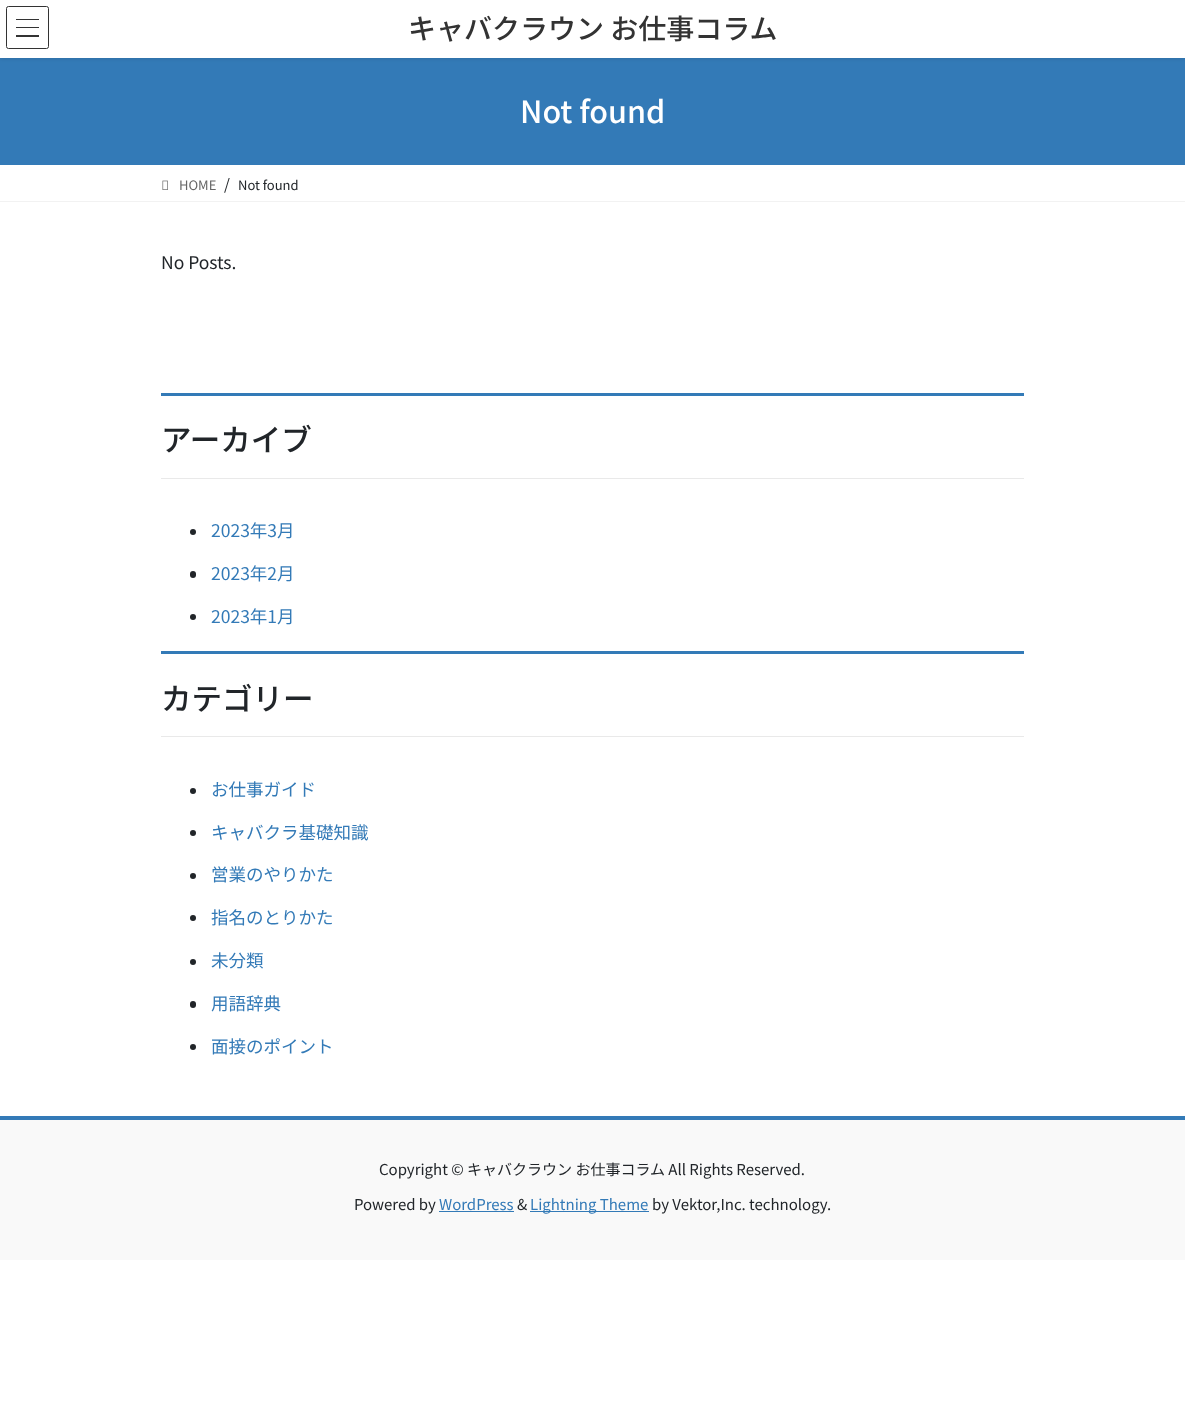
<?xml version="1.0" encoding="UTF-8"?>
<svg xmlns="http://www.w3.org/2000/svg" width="1185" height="1427">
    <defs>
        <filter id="blur1" x="-50%" y="-200%" width="200%" height="500%"><feGaussianBlur stdDeviation="2"/></filter>
    </defs>
    <rect width="100%" height="100%" fill="#FFFFFF"/>
    <rect x="0" y="58" width="1185" height="107" fill="#337AB7"/>
    <rect x="0" y="1" width="1185" height="58" fill="#000000" fill-opacity="0.1" filter="url(#blur1)"/>
    <rect x="0" y="0" width="1185" height="58" fill="#FFFFFF"/>
    <rect x="16" y="19" width="23" height="1" fill="#333333"/>
    <rect x="16" y="27" width="23" height="1" fill="#333333"/>
    <rect x="16" y="35" width="23" height="2" fill="#333333"/>
    <rect x="6.5" y="6.5" width="42" height="42" rx="2" fill="none" stroke="#333333"/>
    <text x="408" y="39" font-family="Noto Sans JP" font-size="28" font-weight="500" fill="#333333">キャバクラウン お仕事コラム</text>
    <text x="520" y="123" font-family="Noto Sans JP" font-size="30.5" font-weight="500" fill="#FFFFFF">Not found</text>
    <rect x="0" y="201" width="1185" height="1" fill="#F2F2F2"/>
    <image x="162" y="180" width="6" height="10" href="img_01.png"/>
    <text x="179" y="190" font-family="Noto Sans JP" font-size="13" fill="#666666">HOME</text>
    <text x="224" y="190" font-family="Noto Sans JP" font-size="15" fill="#212529">/</text>
    <text x="238" y="190" font-family="Noto Sans JP" font-size="13" fill="#212529">Not found</text>
    <text x="161" y="269" font-family="Noto Sans JP" font-size="17.5" fill="#212529">No Posts.</text>
    <rect x="161" y="393" width="863" height="3" fill="#337AB7"/>
    <rect x="161" y="478" width="863" height="1" fill="#E9E9E9"/>
    <text x="161" y="451" font-family="Noto Sans JP" font-size="30.5" font-weight="500" fill="#212529">アーカイブ</text>
    <circle cx="193" cy="532" r="3" fill="#212529"/>
    <text x="211" y="537" font-family="Noto Sans JP" font-size="17.5" fill="#337AB7">2023年3月</text>
    <rect x="190" y="571" width="6" height="7" rx="3" fill="#212529"/>
    <text x="211" y="580" font-family="Noto Sans JP" font-size="17.5" fill="#337AB7">2023年2月</text>
    <circle cx="193" cy="617" r="3" fill="#212529"/>
    <text x="211" y="623" font-family="Noto Sans JP" font-size="17.5" fill="#337AB7">2023年1月</text>
    <rect x="161" y="651" width="863" height="3" fill="#337AB7"/>
    <rect x="161" y="736" width="863" height="1" fill="#E9E9E9"/>
    <text x="161" y="710" font-family="Noto Sans JP" font-size="30.5" font-weight="500" fill="#212529">カテゴリー</text>
    <circle cx="193" cy="791" r="3" fill="#212529"/>
    <text x="211" y="796" font-family="Noto Sans JP" font-size="17.5" fill="#337AB7">お仕事ガイド</text>
    <circle cx="193" cy="833" r="3" fill="#212529"/>
    <text x="211" y="839" font-family="Noto Sans JP" font-size="17.5" fill="#337AB7">キャバクラ基礎知識</text>
    <circle cx="193" cy="876" r="3" fill="#212529"/>
    <text x="211" y="881" font-family="Noto Sans JP" font-size="17.5" fill="#337AB7">営業のやりかた</text>
    <circle cx="193" cy="918" r="3" fill="#212529"/>
    <text x="211" y="924" font-family="Noto Sans JP" font-size="17.5" fill="#337AB7">指名のとりかた</text>
    <circle cx="193" cy="962" r="3" fill="#212529"/>
    <text x="211" y="967" font-family="Noto Sans JP" font-size="17.5" fill="#337AB7">未分類</text>
    <rect x="190" y="1001" width="6" height="7" rx="3" fill="#212529"/>
    <text x="211" y="1010" font-family="Noto Sans JP" font-size="17.5" fill="#337AB7">用語辞典</text>
    <circle cx="193" cy="1047" r="3" fill="#212529"/>
    <text x="211" y="1053" font-family="Noto Sans JP" font-size="17.5" fill="#337AB7">面接のポイント</text>
    <rect x="0" y="1120" width="1185" height="140" fill="#F9F9F9"/>
    <rect x="0" y="1116" width="1185" height="4" fill="#337AB7"/>
    <text x="379" y="1175" font-family="Noto Sans JP" font-size="15" fill="#212529">Copyright © キャバクラウン お仕事コラム All Rights Reserved.</text>
    <text x="354" y="1210" font-family="Noto Sans JP" font-size="15" fill="#212529">Powered by</text>
    <text x="439" y="1210" font-family="Noto Sans JP" font-size="15" fill="#337AB7">WordPress</text>
    <rect x="439" y="1211" width="75" height="1" fill="#337AB7"/>
    <text x="517" y="1210" font-family="Noto Sans JP" font-size="15" fill="#212529">&amp;</text>
    <rect x="530" y="1211" width="119" height="1" fill="#337AB7"/>
    <text x="530" y="1210" font-family="Noto Sans JP" font-size="15" fill="#337AB7">Lightning Theme</text>
    <text x="652" y="1210" font-family="Noto Sans JP" font-size="15" fill="#212529">by Vektor,Inc. technology.</text>
</svg>
